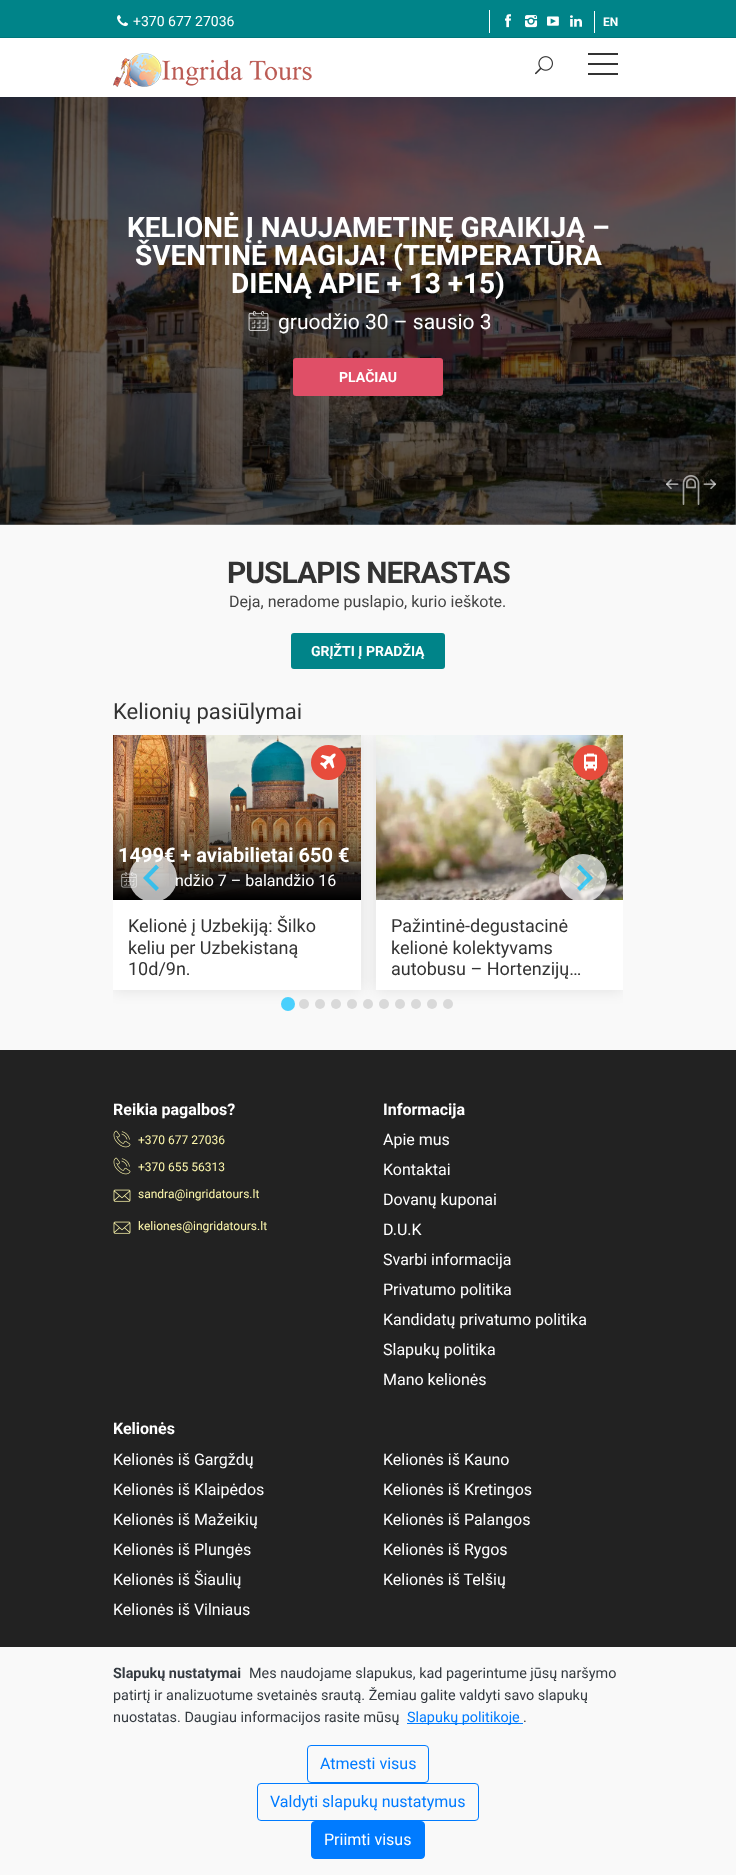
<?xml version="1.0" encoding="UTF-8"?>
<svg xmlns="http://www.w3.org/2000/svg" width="736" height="1875">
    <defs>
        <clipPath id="clip1"><rect x="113" y="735" width="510" height="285"/></clipPath>
        <filter id="blur1" x="-50%" y="-200%" width="200%" height="500%"><feGaussianBlur stdDeviation="7.5"/></filter>
    </defs>
    <rect width="100%" height="100%" fill="#F9F9F9"/>
    <rect x="0" y="38" width="736" height="59" fill="#FFFFFF"/>
    <rect x="0" y="0" width="736" height="37" fill="#008489"/>
    <rect x="0" y="37" width="736" height="1" fill="#00777B"/>
    <image x="117" y="15" width="11" height="12" href="img_01.png"/>
    <text x="133" y="26" font-family="Roboto" font-size="14" fill="#FFFFFF">+370 677 27036</text>
    <rect x="489" y="10" width="1" height="23" fill="#FFFFFF"/>
    <image x="505" y="14" width="6" height="14" href="img_02.png"/>
    <image x="525" y="15" width="13" height="13" href="img_03.png"/>
    <image x="547" y="16" width="12" height="10" href="img_04.png"/>
    <image x="570" y="15" width="12" height="12" href="img_05.png"/>
    <rect x="594" y="11" width="1" height="22" fill="#FFFFFF"/>
    <text x="603" y="26" font-family="Roboto" font-size="12" font-weight="700" fill="#FFFFFF">EN</text>
    <image x="113" y="53" width="199" height="34" href="img_06.png"/>
    <image x="535" y="56" width="18" height="19" href="img_07.png"/>
    <rect x="588" y="63" width="30" height="2" fill="#333333"/>
    <rect x="588" y="53" width="30" height="2" fill="#333333"/>
    <rect x="588" y="73" width="30" height="2" fill="#333333"/>
    <image x="0" y="97" width="736" height="428" href="img_08.png"/>
    <text x="127" y="237" font-family="Roboto" font-size="28" font-weight="700" fill="#FFFFFF">KELIONĖ Į NAUJAMETINĘ GRAIKIJĄ –</text>
    <text x="135" y="265" font-family="Roboto" font-size="28" font-weight="700" fill="#FFFFFF">ŠVENTINĖ MAGIJA! (TEMPERATŪRA</text>
    <text x="231" y="293" font-family="Roboto" font-size="28" font-weight="700" fill="#FFFFFF">DIENĄ APIE + 13 +15)</text>
    <image x="248" y="311" width="21" height="20" href="img_09.png"/>
    <text x="278" y="329" font-family="Roboto" font-size="21" fill="#FFFFFF">gruodžio 30 – sausio 3</text>
    <rect x="293" y="358" width="150" height="38" rx="3" fill="#E04F67"/>
    <text x="339" y="382" font-family="Roboto" font-size="14" font-weight="700" fill="#FFFFFF">PLAČIAU</text>
    <image x="666" y="475" width="50" height="30" href="img_10.png"/>
    <text x="227" y="583" font-family="Roboto" font-size="30" font-weight="700" letter-spacing="-1" fill="#333333">PUSLAPIS NERASTAS</text>
    <text x="229" y="607" font-family="Roboto" font-size="16" fill="#444444">Deja, neradome puslapio, kurio ieškote.</text>
    <rect x="291" y="633" width="154" height="36" rx="3" fill="#008489"/>
    <text x="311" y="656" font-family="Roboto" font-size="14" font-weight="700" fill="#FFFFFF">GRĮŽTI Į PRADŽIĄ</text>
    <text x="113" y="719" font-family="Roboto" font-size="22" fill="#333333">Kelionių pasiūlymai</text>
    <g clip-path="url(#clip1)">
        <rect x="113" y="735" width="248" height="255" fill="#000000" fill-opacity="0.1" filter="url(#blur1)"/>
    </g>
    <rect x="113" y="900" width="248" height="90" fill="#FFFFFF"/>
    <image x="113" y="735" width="248" height="165" href="img_11.png"/>
    <circle cx="328.5" cy="762.5" r="17.5" fill="#E74C3C"/>
    <image x="320" y="753" width="16" height="17" href="img_12.png"/>
    <text x="118" y="862" font-family="Roboto" font-size="20" font-weight="700" fill="#FFFFFF">1499€ + aviabilietai 650 €</text>
    <image x="121" y="872" width="16" height="16" href="img_13.png"/>
    <text x="175" y="886" font-family="Roboto" font-size="16" fill="#FFFFFF">ndžio 7 – balandžio 16</text>
    <text font-family="Roboto" font-size="18" fill="#333333">
        <tspan x="128" y="932">Kelionė į Uzbekiją: Šilko</tspan>
        <tspan x="128" y="954">keliu per Uzbekistaną</tspan>
        <tspan x="128" y="975">10d/9n.</tspan>
    </text>
    <g clip-path="url(#clip1)">
        <rect x="376" y="735" width="247" height="255" fill="#000000" fill-opacity="0.1" filter="url(#blur1)"/>
    </g>
    <rect x="376" y="900" width="247" height="90" fill="#FFFFFF"/>
    <image x="376" y="735" width="247" height="165" href="img_14.png"/>
    <circle cx="590.5" cy="762.5" r="17.5" fill="#E74C3C"/>
    <image x="584" y="753" width="13" height="18" href="img_15.png"/>
    <text font-family="Roboto" font-size="18" fill="#333333">
        <tspan x="391" y="932">Pažintinė-degustacinė</tspan>
        <tspan x="391" y="954">kelionė kolektyvams</tspan>
        <tspan x="391" y="975">autobusu – Hortenzijų…</tspan>
    </text>
    <circle cx="153" cy="878" r="24" fill="#FFFFFF" fill-opacity="0.7"/>
    <path d="M 156 864.5 L 159 867.5 L 149 878 L 159 888 L 156 891 L 143 878 Z" fill="#00BFFF" fill-opacity="0.7"/>
    <circle cx="583" cy="878" r="24" fill="#FFFFFF" fill-opacity="0.7"/>
    <path d="M 580 864.5 L 577 867.5 L 587 878 L 577 888 L 580 891 L 593 878 Z" fill="#00BFFF" fill-opacity="0.7"/>
    <circle cx="288" cy="1004" r="7" fill="#00BFFF" fill-opacity="0.7"/>
    <circle cx="304" cy="1004" r="5" fill="#D9D9D9"/>
    <circle cx="320" cy="1004" r="5" fill="#D9D9D9"/>
    <circle cx="336" cy="1004" r="5" fill="#D9D9D9"/>
    <circle cx="352" cy="1004" r="5" fill="#D9D9D9"/>
    <circle cx="368" cy="1004" r="5" fill="#D9D9D9"/>
    <circle cx="384" cy="1004" r="5" fill="#D9D9D9"/>
    <circle cx="400" cy="1004" r="5" fill="#D9D9D9"/>
    <circle cx="416" cy="1004" r="5" fill="#D9D9D9"/>
    <circle cx="432" cy="1004" r="5" fill="#D9D9D9"/>
    <circle cx="448" cy="1004" r="5" fill="#D9D9D9"/>
    <rect x="0" y="1050" width="736" height="597" fill="#222222"/>
    <text x="113" y="1115" font-family="Roboto" font-size="16" font-weight="700" fill="#FFFFFF">Reikia pagalbos?</text>
    <image x="113" y="1130" width="18" height="18" href="img_16.png"/>
    <text x="138" y="1144" font-family="Roboto" font-size="12" fill="#FDF7AC">+370 677 27036</text>
    <image x="113" y="1157" width="18" height="18" href="img_16.png"/>
    <text x="138" y="1171" font-family="Roboto" font-size="12" fill="#FDF7AC">+370 655 56313</text>
    <image x="113" y="1189" width="18" height="13" href="img_17.png"/>
    <text x="138" y="1198" font-family="Roboto" font-size="12" fill="#FDF7AC">sandra@ingridatours.lt</text>
    <image x="113" y="1221" width="18" height="13" href="img_17.png"/>
    <text x="138" y="1230" font-family="Roboto" font-size="12" fill="#FDF7AC">keliones@ingridatours.lt</text>
    <text x="383" y="1115" font-family="Roboto" font-size="16" font-weight="700" fill="#FFFFFF">Informacija</text>
    <text font-family="Roboto" font-size="16" fill="#FFFFFF">
        <tspan x="383" y="1145">Apie mus</tspan>
        <tspan x="383" y="1175">Kontaktai</tspan>
        <tspan x="383" y="1205">Dovanų kuponai</tspan>
        <tspan x="383" y="1235">D.U.K</tspan>
        <tspan x="383" y="1265">Svarbi informacija</tspan>
        <tspan x="383" y="1295">Privatumo politika</tspan>
        <tspan x="383" y="1325">Kandidatų privatumo politika</tspan>
        <tspan x="383" y="1355">Slapukų politika</tspan>
        <tspan x="383" y="1385">Mano kelionės</tspan>
    </text>
    <text x="113" y="1434" font-family="Roboto" font-size="16" font-weight="700" fill="#FFFFFF">Kelionės</text>
    <text x="113" y="1465" font-family="Roboto" font-size="16" fill="#FFFFFF">Kelionės iš Gargždų</text>
    <text x="383" y="1465" font-family="Roboto" font-size="16" fill="#FFFFFF">Kelionės iš Kauno</text>
    <text x="113" y="1495" font-family="Roboto" font-size="16" fill="#FFFFFF">Kelionės iš Klaipėdos</text>
    <text x="383" y="1495" font-family="Roboto" font-size="16" fill="#FFFFFF">Kelionės iš Kretingos</text>
    <text x="113" y="1525" font-family="Roboto" font-size="16" fill="#FFFFFF">Kelionės iš Mažeikių</text>
    <text x="383" y="1525" font-family="Roboto" font-size="16" fill="#FFFFFF">Kelionės iš Palangos</text>
    <text x="113" y="1555" font-family="Roboto" font-size="16" fill="#FFFFFF">Kelionės iš Plungės</text>
    <text x="383" y="1555" font-family="Roboto" font-size="16" fill="#FFFFFF">Kelionės iš Rygos</text>
    <text x="113" y="1585" font-family="Roboto" font-size="16" fill="#FFFFFF">Kelionės iš Šiaulių</text>
    <text x="383" y="1585" font-family="Roboto" font-size="16" fill="#FFFFFF">Kelionės iš Telšių</text>
    <text x="113" y="1615" font-family="Roboto" font-size="16" fill="#FFFFFF">Kelionės iš Vilniaus</text>
    <text x="113" y="1678" font-family="Roboto" font-size="14.4" font-weight="700" fill="#343A40">Slapukų nustatymai</text>
    <text x="249" y="1678" font-family="Roboto" font-size="14.4" fill="#343A40">Mes naudojame slapukus, kad pagerintume jūsų naršymo</text>
    <text font-family="Roboto" font-size="14.4" fill="#343A40">
        <tspan x="113" y="1700">patirtį ir analizuotume svetainės srautą. Žemiau galite valdyti savo slapukų</tspan>
        <tspan x="113" y="1722">nuostatas. Daugiau informacijos rasite mūsų</tspan>
    </text>
    <rect x="407" y="1723" width="116" height="1" fill="#007BFF"/>
    <text x="407" y="1722" font-family="Roboto" font-size="14.4" fill="#007BFF">Slapukų politikoje</text>
    <text x="523" y="1722" font-family="Roboto" font-size="14.4" fill="#343A40">.</text>
    <rect x="307.5" y="1745.5" width="121" height="37" rx="3.5" fill="none" stroke="#007BFF"/>
    <text x="320" y="1769" font-family="Roboto" font-size="16" fill="#007BFF">Atmesti visus</text>
    <rect x="257.5" y="1783.5" width="221" height="37" rx="3.5" fill="none" stroke="#007BFF"/>
    <text x="270" y="1807" font-family="Roboto" font-size="16" fill="#007BFF">Valdyti slapukų nustatymus</text>
    <rect x="311.5" y="1821.5" width="113" height="37" rx="3.5" fill="#007BFF" stroke="#007BFF"/>
    <text x="324" y="1845" font-family="Roboto" font-size="16" fill="#FFFFFF">Priimti visus</text>
</svg>
